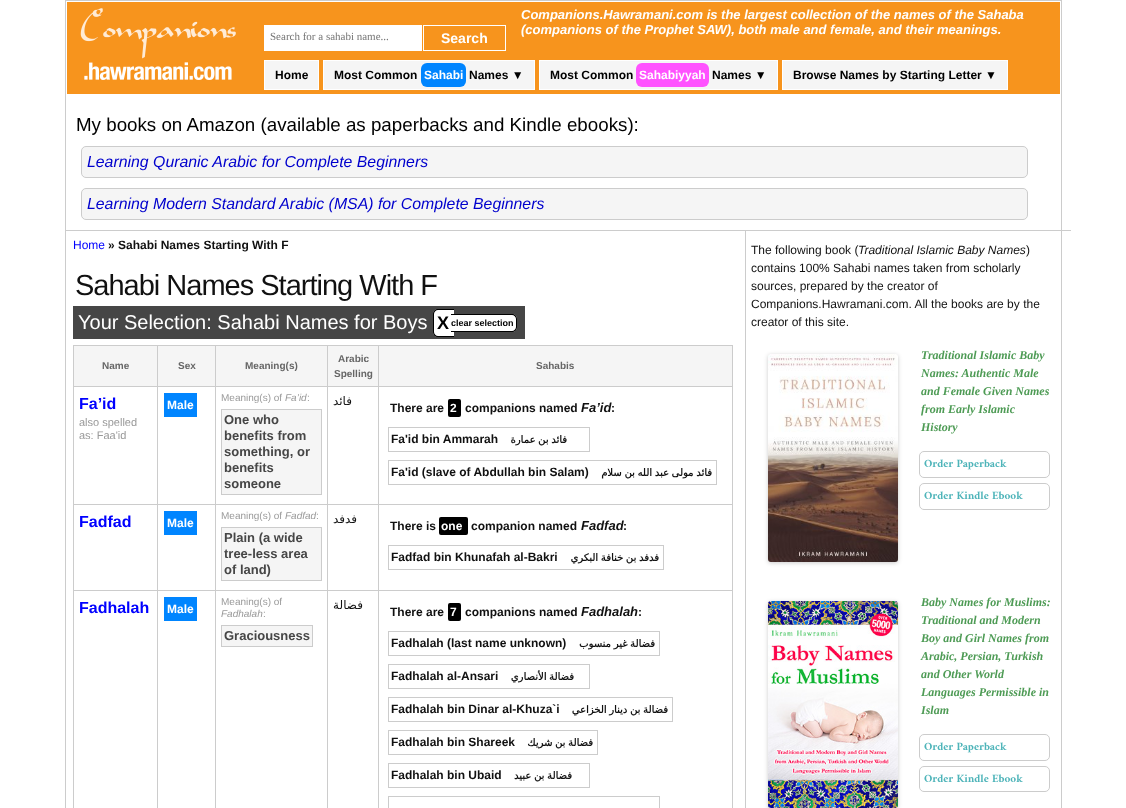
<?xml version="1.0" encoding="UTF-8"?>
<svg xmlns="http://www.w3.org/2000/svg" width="1126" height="808">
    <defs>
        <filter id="blur1" x="-50%" y="-200%" width="200%" height="500%"><feGaussianBlur stdDeviation="2"/></filter>
    </defs>
    <rect width="100%" height="100%" fill="#FFFFFF"/>
    <rect x="65.5" y="0.5" width="996" height="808" fill="none" stroke="#CCCCCC"/>
    <rect x="67" y="2" width="993" height="92" fill="#F7941D"/>
    <image x="80" y="8" width="156" height="72" href="img_01.png"/>
    <text font-family="Liberation Sans" font-size="13" font-weight="700" font-style="italic" fill="#FFFFFF">
        <tspan x="521" y="19">Companions.Hawramani.com is the largest collection of the names of the Sahaba</tspan>
        <tspan x="521" y="34">(companions of the Prophet SAW), both male and female, and their meanings.</tspan>
    </text>
    <rect x="264.5" y="60.5" width="54" height="29" fill="#F5F5F5" stroke="#FFFFFF"/>
    <text x="275" y="79" font-family="Liberation Sans" font-size="12" font-weight="700" fill="#000000">Home</text>
    <rect x="323.5" y="60.5" width="211" height="29" fill="#F5F5F5" stroke="#FFFFFF"/>
    <text x="334" y="79" font-family="Liberation Sans" font-size="12" font-weight="700" fill="#000000">Most Common</text>
    <rect x="421" y="63" width="45" height="24" rx="6" fill="#0085FF"/>
    <text x="424" y="79" font-family="Liberation Sans" font-size="12" font-weight="700" fill="#FFFFFF">Sahabi</text>
    <text x="469" y="79" font-family="Liberation Sans" font-size="12" font-weight="700" fill="#000000">Names ▼</text>
    <rect x="539.5" y="60.5" width="238" height="29" fill="#F5F5F5" stroke="#FFFFFF"/>
    <text x="550" y="79" font-family="Liberation Sans" font-size="12" font-weight="700" fill="#000000">Most Common</text>
    <rect x="636" y="63" width="73" height="24" rx="6" fill="#FF52FF"/>
    <text x="639" y="79" font-family="Liberation Sans" font-size="12" font-weight="700" fill="#FFFFFF">Sahabiyyah</text>
    <text x="712" y="79" font-family="Liberation Sans" font-size="12" font-weight="700" fill="#000000">Names ▼</text>
    <rect x="782.5" y="60.5" width="225" height="29" fill="#F5F5F5" stroke="#FFFFFF"/>
    <text x="793" y="79" font-family="Liberation Sans" font-size="12" font-weight="700" fill="#000000">Browse Names by Starting Letter ▼</text>
    <rect x="264" y="25" width="158" height="26" fill="#FFFFFF"/>
    <text x="270" y="40" font-family="Liberation Serif" font-size="11" fill="#757575">Search for a sahabi name...</text>
    <rect x="423.5" y="25.5" width="82" height="25" fill="none" stroke="#FFFFFF"/>
    <text x="441" y="43" font-family="Liberation Sans" font-size="14" font-weight="700" fill="#FFFFFF">Search</text>
    <rect x="66" y="230" width="1005" height="1" fill="#CCCCCC"/>
    <text x="76" y="131" font-family="Liberation Sans" font-size="18.75" fill="#000000">My books on Amazon (available as paperbacks and Kindle ebooks):</text>
    <rect x="81.5" y="146.5" width="946" height="31" rx="4.5" fill="#F5F5F5" stroke="#CCCCCC"/>
    <text x="87" y="167" font-family="Liberation Sans" font-size="15.85" font-style="italic" fill="#0000CD">Learning Quranic Arabic for Complete Beginners</text>
    <rect x="81.5" y="188.5" width="946" height="31" rx="4.5" fill="#F5F5F5" stroke="#CCCCCC"/>
    <text x="87" y="209" font-family="Liberation Sans" font-size="15.85" font-style="italic" fill="#0000CD">Learning Modern Standard Arabic (MSA) for Complete Beginners</text>
    <text x="73" y="249" font-family="Liberation Sans" font-size="12" fill="#0000FF">Home</text>
    <text x="108" y="249" font-family="Liberation Sans" font-size="12" font-weight="700" fill="#111111">» Sahabi Names Starting With F</text>
    <text x="75" y="295" font-family="Liberation Sans" font-size="29" letter-spacing="-1" fill="#111111">Sahabi Names Starting With F</text>
    <rect x="73" y="306" width="452" height="33" fill="#464646"/>
    <text x="78" y="329" font-family="Liberation Sans" font-size="20" fill="#FFFFFF">Your Selection: Sahabi Names for Boys</text>
    <path d="M 438 309 H 454 V 337 H 438 C 435 337 433 335 433 332 V 314 C 433 311 435 309 438 309 Z" fill="#FFFFFF"/>
    <path d="M 438 309 H 454 V 337 H 438 C 435 337 433 335 433 332 V 314 C 433 311 435 309 438 309 Z M 438 310 H 454 V 336 H 438 C 436 336 434 334 434 332 V 314 C 434 312 436 310 438 310 Z" fill="#000000" fill-rule="evenodd"/>
    <text x="437" y="329" font-family="Liberation Sans" font-size="18" font-weight="700" fill="#000000">X</text>
    <path d="M 451 314 H 512 C 515 314 517 316 517 319 V 327 C 517 330 515 332 512 332 H 451 Z" fill="#FFFFFF"/>
    <path d="M 451 314 H 512 C 515 314 517 316 517 319 V 327 C 517 330 515 332 512 332 H 451 Z M 451 315 H 512 C 514 315 516 317 516 319 V 327 C 516 329 514 331 512 331 H 451 Z" fill="#000000" fill-rule="evenodd"/>
    <text x="451" y="326" font-family="Liberation Sans" font-size="9" font-weight="700" fill="#000000">clear selection</text>
    <rect x="74" y="346" width="83" height="40" fill="#F5F5F5"/>
    <rect x="378" y="345" width="355" height="1" fill="#CCCCCC"/>
    <rect x="378" y="386" width="355" height="1" fill="#CCCCCC"/>
    <rect x="378" y="504" width="355" height="1" fill="#CCCCCC"/>
    <rect x="378" y="590" width="355" height="1" fill="#CCCCCC"/>
    <rect x="378" y="590" width="1" height="218" fill="#CCCCCC"/>
    <rect x="327" y="590" width="52" height="1" fill="#CCCCCC"/>
    <rect x="378" y="504" width="1" height="87" fill="#CCCCCC"/>
    <rect x="327" y="504" width="52" height="1" fill="#CCCCCC"/>
    <rect x="378" y="386" width="1" height="119" fill="#CCCCCC"/>
    <rect x="327" y="386" width="52" height="1" fill="#CCCCCC"/>
    <rect x="378" y="345" width="1" height="42" fill="#CCCCCC"/>
    <rect x="327" y="345" width="52" height="1" fill="#CCCCCC"/>
    <rect x="327" y="590" width="1" height="218" fill="#CCCCCC"/>
    <rect x="215" y="590" width="113" height="1" fill="#CCCCCC"/>
    <rect x="327" y="504" width="1" height="87" fill="#CCCCCC"/>
    <rect x="215" y="504" width="113" height="1" fill="#CCCCCC"/>
    <rect x="327" y="386" width="1" height="119" fill="#CCCCCC"/>
    <rect x="215" y="386" width="113" height="1" fill="#CCCCCC"/>
    <rect x="327" y="345" width="1" height="42" fill="#CCCCCC"/>
    <rect x="215" y="345" width="113" height="1" fill="#CCCCCC"/>
    <rect x="215" y="590" width="1" height="218" fill="#CCCCCC"/>
    <rect x="157" y="590" width="59" height="1" fill="#CCCCCC"/>
    <rect x="215" y="504" width="1" height="87" fill="#CCCCCC"/>
    <rect x="157" y="504" width="59" height="1" fill="#CCCCCC"/>
    <rect x="215" y="386" width="1" height="119" fill="#CCCCCC"/>
    <rect x="157" y="386" width="59" height="1" fill="#CCCCCC"/>
    <rect x="215" y="345" width="1" height="42" fill="#CCCCCC"/>
    <rect x="157" y="345" width="59" height="1" fill="#CCCCCC"/>
    <rect x="157" y="590" width="1" height="218" fill="#CCCCCC"/>
    <rect x="73" y="590" width="85" height="1" fill="#CCCCCC"/>
    <rect x="157" y="504" width="1" height="87" fill="#CCCCCC"/>
    <rect x="73" y="504" width="85" height="1" fill="#CCCCCC"/>
    <rect x="157" y="386" width="1" height="119" fill="#CCCCCC"/>
    <rect x="73" y="386" width="85" height="1" fill="#CCCCCC"/>
    <rect x="157" y="345" width="1" height="42" fill="#CCCCCC"/>
    <rect x="73" y="345" width="85" height="1" fill="#CCCCCC"/>
    <rect x="73" y="590" width="1" height="218" fill="#CCCCCC"/>
    <rect x="73" y="504" width="1" height="87" fill="#CCCCCC"/>
    <rect x="73" y="386" width="1" height="119" fill="#CCCCCC"/>
    <rect x="73" y="345" width="1" height="42" fill="#CCCCCC"/>
    <text x="102" y="369" font-family="Liberation Sans" font-size="10" font-weight="700" fill="#666666">Name</text>
    <rect x="158" y="346" width="57" height="40" fill="#F5F5F5"/>
    <text x="178" y="369" font-family="Liberation Sans" font-size="10" font-weight="700" fill="#666666">Sex</text>
    <rect x="216" y="346" width="111" height="40" fill="#F5F5F5"/>
    <text x="245" y="369" font-family="Liberation Sans" font-size="10" font-weight="700" fill="#666666">Meaning(s)</text>
    <rect x="328" y="346" width="50" height="40" fill="#F5F5F5"/>
    <text x="338" y="362" font-family="Liberation Sans" font-size="10" font-weight="700" fill="#666666">Arabic</text>
    <text x="334" y="377" font-family="Liberation Sans" font-size="10" font-weight="700" fill="#666666">Spelling</text>
    <rect x="379" y="346" width="353" height="40" fill="#F5F5F5"/>
    <rect x="732" y="590" width="1" height="218" fill="#CCCCCC"/>
    <rect x="732" y="504" width="1" height="87" fill="#CCCCCC"/>
    <rect x="732" y="386" width="1" height="119" fill="#CCCCCC"/>
    <rect x="732" y="345" width="1" height="42" fill="#CCCCCC"/>
    <text x="536" y="369" font-family="Liberation Sans" font-size="10" font-weight="700" fill="#666666">Sahabis</text>
    <text x="79" y="409" font-family="Liberation Sans" font-size="16" font-weight="700" fill="#0000FF">Fa’id</text>
    <text font-family="Liberation Sans" font-size="11" fill="#999999">
        <tspan x="79" y="426">also spelled</tspan>
        <tspan x="79" y="439">as: Faa'id</tspan>
    </text>
    <rect x="164" y="393" width="33" height="24" fill="#0085FF"/>
    <text x="167" y="409" font-family="Liberation Sans" font-size="12" font-weight="700" fill="#FFFFFF">Male</text>
    <text x="221" y="401" font-family="Liberation Sans" font-size="10" fill="#999999">Meaning(s) of</text>
    <text x="285" y="401" font-family="Liberation Sans" font-size="10" font-style="italic" fill="#999999">Fa’id</text>
    <text x="307" y="401" font-family="Liberation Sans" font-size="10" fill="#999999">:</text>
    <rect x="221.5" y="409.5" width="100" height="85" fill="#F5F5F5" stroke="#CCCCCC"/>
    <text font-family="Liberation Sans" font-size="13" font-weight="700" fill="#464646">
        <tspan x="224" y="424">One who</tspan>
        <tspan x="224" y="440">benefits from</tspan>
        <tspan x="224" y="456">something, or</tspan>
        <tspan x="224" y="472">benefits</tspan>
        <tspan x="224" y="488">someone</tspan>
    </text>
    <text x="352" y="405" font-family="DejaVu Sans" font-size="12" direction="rtl" fill="#111111">فائد</text>
    <text x="390" y="412" font-family="Liberation Sans" font-size="12" font-weight="700" fill="#111111">There are</text>
    <rect x="448" y="399" width="13" height="18" rx="2" fill="#000000"/>
    <text x="450" y="412" font-family="Liberation Sans" font-size="12" font-weight="700" fill="#FFFFFF">2</text>
    <text x="465" y="412" font-family="Liberation Sans" font-size="12" font-weight="700" fill="#111111">companions named</text>
    <text x="581" y="412" font-family="Liberation Sans" font-size="13" font-weight="700" font-style="italic" fill="#111111">Fa’id</text>
    <text x="611" y="412" font-family="Liberation Sans" font-size="12" font-weight="700" fill="#111111">:</text>
    <rect x="388.5" y="427.5" width="201" height="24" fill="none" stroke="#CCCCCC"/>
    <text x="391" y="443" font-family="Liberation Sans" font-size="12" font-weight="700" fill="#111111">Fa'id bin Ammarah</text>
    <text x="567" y="443" word-spacing="-0.5" font-family="DejaVu Sans" font-size="10" font-weight="700" direction="rtl" fill="#111111">فائد بن عمارة</text>
    <rect x="388.5" y="460.5" width="328" height="24" fill="none" stroke="#CCCCCC"/>
    <text x="391" y="476" font-family="Liberation Sans" font-size="12" font-weight="700" fill="#111111">Fa'id (slave of Abdullah bin Salam)</text>
    <text x="712" y="476" word-spacing="-0.5" font-family="DejaVu Sans" font-size="10" font-weight="700" direction="rtl" fill="#111111">فائد مولى عبد الله بن سلام</text>
    <text x="79" y="527" font-family="Liberation Sans" font-size="16" font-weight="700" fill="#0000FF">Fadfad</text>
    <rect x="164" y="511" width="33" height="24" fill="#0085FF"/>
    <text x="167" y="527" font-family="Liberation Sans" font-size="12" font-weight="700" fill="#FFFFFF">Male</text>
    <text x="221" y="519" font-family="Liberation Sans" font-size="10" fill="#999999">Meaning(s) of</text>
    <text x="285" y="519" font-family="Liberation Sans" font-size="10" font-style="italic" fill="#999999">Fadfad</text>
    <text x="316" y="519" font-family="Liberation Sans" font-size="10" fill="#999999">:</text>
    <rect x="221.5" y="527.5" width="100" height="53" fill="#F5F5F5" stroke="#CCCCCC"/>
    <text font-family="Liberation Sans" font-size="13" font-weight="700" fill="#464646">
        <tspan x="224" y="542">Plain (a wide</tspan>
        <tspan x="224" y="558">tree-less area</tspan>
        <tspan x="224" y="574">of land)</tspan>
    </text>
    <text x="357" y="523" font-family="DejaVu Sans" font-size="12" direction="rtl" fill="#111111">فدفد</text>
    <text x="390" y="530" font-family="Liberation Sans" font-size="12" font-weight="700" fill="#111111">There is</text>
    <rect x="439" y="517" width="29" height="18" rx="2" fill="#000000"/>
    <text x="441" y="530" font-family="Liberation Sans" font-size="12" font-weight="700" fill="#FFFFFF">one</text>
    <text x="471" y="530" font-family="Liberation Sans" font-size="12" font-weight="700" fill="#111111">companion named</text>
    <text x="581" y="530" font-family="Liberation Sans" font-size="13" font-weight="700" font-style="italic" fill="#111111">Fadfad</text>
    <text x="623" y="530" font-family="Liberation Sans" font-size="12" font-weight="700" fill="#111111">:</text>
    <rect x="388.5" y="545.5" width="275" height="24" fill="none" stroke="#CCCCCC"/>
    <text x="391" y="561" font-family="Liberation Sans" font-size="12" font-weight="700" fill="#111111">Fadfad bin Khunafah al-Bakri</text>
    <text x="659" y="561" word-spacing="-0.5" font-family="DejaVu Sans" font-size="10" font-weight="700" direction="rtl" fill="#111111">فدفد بن خنافة البكري</text>
    <text x="79" y="613" font-family="Liberation Sans" font-size="16" font-weight="700" fill="#0000FF">Fadhalah</text>
    <rect x="164" y="597" width="33" height="24" fill="#0085FF"/>
    <text x="167" y="613" font-family="Liberation Sans" font-size="12" font-weight="700" fill="#FFFFFF">Male</text>
    <text x="221" y="605" font-family="Liberation Sans" font-size="10" fill="#999999">Meaning(s) of</text>
    <text x="221" y="617" font-family="Liberation Sans" font-size="10" font-style="italic" fill="#999999">Fadhalah</text>
    <text x="263" y="617" font-family="Liberation Sans" font-size="10" fill="#999999">:</text>
    <rect x="221.5" y="625.5" width="91" height="21" fill="#F5F5F5" stroke="#CCCCCC"/>
    <text x="224" y="640" font-family="Liberation Sans" font-size="13" font-weight="700" fill="#464646">Graciousness</text>
    <text x="363" y="609" font-family="DejaVu Sans" font-size="12" direction="rtl" fill="#111111">فضالة</text>
    <text x="390" y="616" font-family="Liberation Sans" font-size="12" font-weight="700" fill="#111111">There are</text>
    <rect x="448" y="603" width="13" height="18" rx="2" fill="#000000"/>
    <text x="450" y="616" font-family="Liberation Sans" font-size="12" font-weight="700" fill="#FFFFFF">7</text>
    <text x="465" y="616" font-family="Liberation Sans" font-size="12" font-weight="700" fill="#111111">companions named</text>
    <text x="581" y="616" font-family="Liberation Sans" font-size="13" font-weight="700" font-style="italic" fill="#111111">Fadhalah</text>
    <text x="638" y="616" font-family="Liberation Sans" font-size="12" font-weight="700" fill="#111111">:</text>
    <rect x="388.5" y="631.5" width="271" height="24" fill="none" stroke="#CCCCCC"/>
    <text x="391" y="647" font-family="Liberation Sans" font-size="12" font-weight="700" fill="#111111">Fadhalah (last name unknown)</text>
    <text x="655" y="647" word-spacing="-0.5" font-family="DejaVu Sans" font-size="10" font-weight="700" direction="rtl" fill="#111111">فضالة غير منسوب</text>
    <rect x="388.5" y="664.5" width="201" height="24" fill="none" stroke="#CCCCCC"/>
    <text x="391" y="680" font-family="Liberation Sans" font-size="12" font-weight="700" fill="#111111">Fadhalah al-Ansari</text>
    <text x="574" y="680" word-spacing="-0.5" font-family="DejaVu Sans" font-size="10" font-weight="700" direction="rtl" fill="#111111">فضالة الأنصاري</text>
    <rect x="388.5" y="697.5" width="284" height="24" fill="none" stroke="#CCCCCC"/>
    <text x="391" y="713" font-family="Liberation Sans" font-size="12" font-weight="700" fill="#111111">Fadhalah bin Dinar al-Khuza`i</text>
    <text x="668" y="713" word-spacing="-0.5" font-family="DejaVu Sans" font-size="10" font-weight="700" direction="rtl" fill="#111111">فضالة بن دينار الخزاعي</text>
    <rect x="388.5" y="730.5" width="209" height="24" fill="none" stroke="#CCCCCC"/>
    <text x="391" y="746" font-family="Liberation Sans" font-size="12" font-weight="700" fill="#111111">Fadhalah bin Shareek</text>
    <text x="593" y="746" word-spacing="-0.5" font-family="DejaVu Sans" font-size="10" font-weight="700" direction="rtl" fill="#111111">فضالة بن شريك</text>
    <rect x="388.5" y="763.5" width="201" height="24" fill="none" stroke="#CCCCCC"/>
    <text x="391" y="779" font-family="Liberation Sans" font-size="12" font-weight="700" fill="#111111">Fadhalah bin Ubaid</text>
    <text x="572" y="779" word-spacing="-0.5" font-family="DejaVu Sans" font-size="10" font-weight="700" direction="rtl" fill="#111111">فضالة بن عبيد</text>
    <rect x="388.5" y="796.5" width="271" height="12" fill="none" stroke="#CCCCCC"/>
    <rect x="745" y="231" width="1" height="577" fill="#CCCCCC"/>
    <text x="751" y="254" font-family="Liberation Sans" font-size="12" fill="#111111">The following book (</text>
    <text x="858" y="254" font-family="Liberation Sans" font-size="12" font-style="italic" fill="#111111">Traditional Islamic Baby Names</text>
    <text x="1026" y="254" font-family="Liberation Sans" font-size="12" fill="#111111">)</text>
    <text font-family="Liberation Sans" font-size="12" fill="#111111">
        <tspan x="751" y="272">contains 100% Sahabi names taken from scholarly</tspan>
        <tspan x="751" y="290">sources, prepared by the creator of</tspan>
        <tspan x="751" y="308">Companions.Hawramani.com. All the books are by the</tspan>
        <tspan x="751" y="326">creator of this site.</tspan>
    </text>
    <rect x="768" y="355" width="130" height="208" rx="3" fill="#000000" fill-opacity="0.2" filter="url(#blur1)"/>
    <image x="768" y="354" width="130" height="208" href="img_02.png"/>
    <text font-family="Liberation Serif" font-size="12" font-weight="700" font-style="italic" fill="#4E9B55">
        <tspan x="921" y="359">Traditional Islamic Baby</tspan>
        <tspan x="921" y="377">Names: Authentic Male</tspan>
        <tspan x="921" y="395">and Female Given Names</tspan>
        <tspan x="921" y="413">from Early Islamic</tspan>
        <tspan x="921" y="431">History</tspan>
    </text>
    <rect x="919.5" y="451.5" width="130" height="26" rx="4.5" fill="none" stroke="#CCCCCC"/>
    <text x="924" y="467" font-family="Amiri" font-size="11.25" font-weight="700" fill="#4EB4B9">Order Paperback</text>
    <rect x="919.5" y="483.5" width="130" height="26" rx="4.5" fill="none" stroke="#CCCCCC"/>
    <text x="924" y="499" font-family="Amiri" font-size="11.25" font-weight="700" fill="#4EB4B9">Order Kindle Ebook</text>
    <rect x="768" y="602" width="130" height="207" rx="3" fill="#000000" fill-opacity="0.2" filter="url(#blur1)"/>
    <image x="768" y="601" width="130" height="207" href="img_03.png"/>
    <text font-family="Liberation Serif" font-size="12" font-weight="700" font-style="italic" fill="#4E9B55">
        <tspan x="921" y="606">Baby Names for Muslims:</tspan>
        <tspan x="921" y="624">Traditional and Modern</tspan>
        <tspan x="921" y="642">Boy and Girl Names from</tspan>
        <tspan x="921" y="660">Arabic, Persian, Turkish</tspan>
        <tspan x="921" y="678">and Other World</tspan>
        <tspan x="921" y="696">Languages Permissible in</tspan>
        <tspan x="921" y="714">Islam</tspan>
    </text>
    <rect x="919.5" y="734.5" width="130" height="26" rx="4.5" fill="none" stroke="#CCCCCC"/>
    <text x="924" y="750" font-family="Amiri" font-size="11.25" font-weight="700" fill="#4EB4B9">Order Paperback</text>
    <rect x="919.5" y="766.5" width="130" height="25" rx="4.5" fill="none" stroke="#CCCCCC"/>
    <text x="924" y="782" font-family="Amiri" font-size="11.25" font-weight="700" fill="#4EB4B9">Order Kindle Ebook</text>
</svg>
